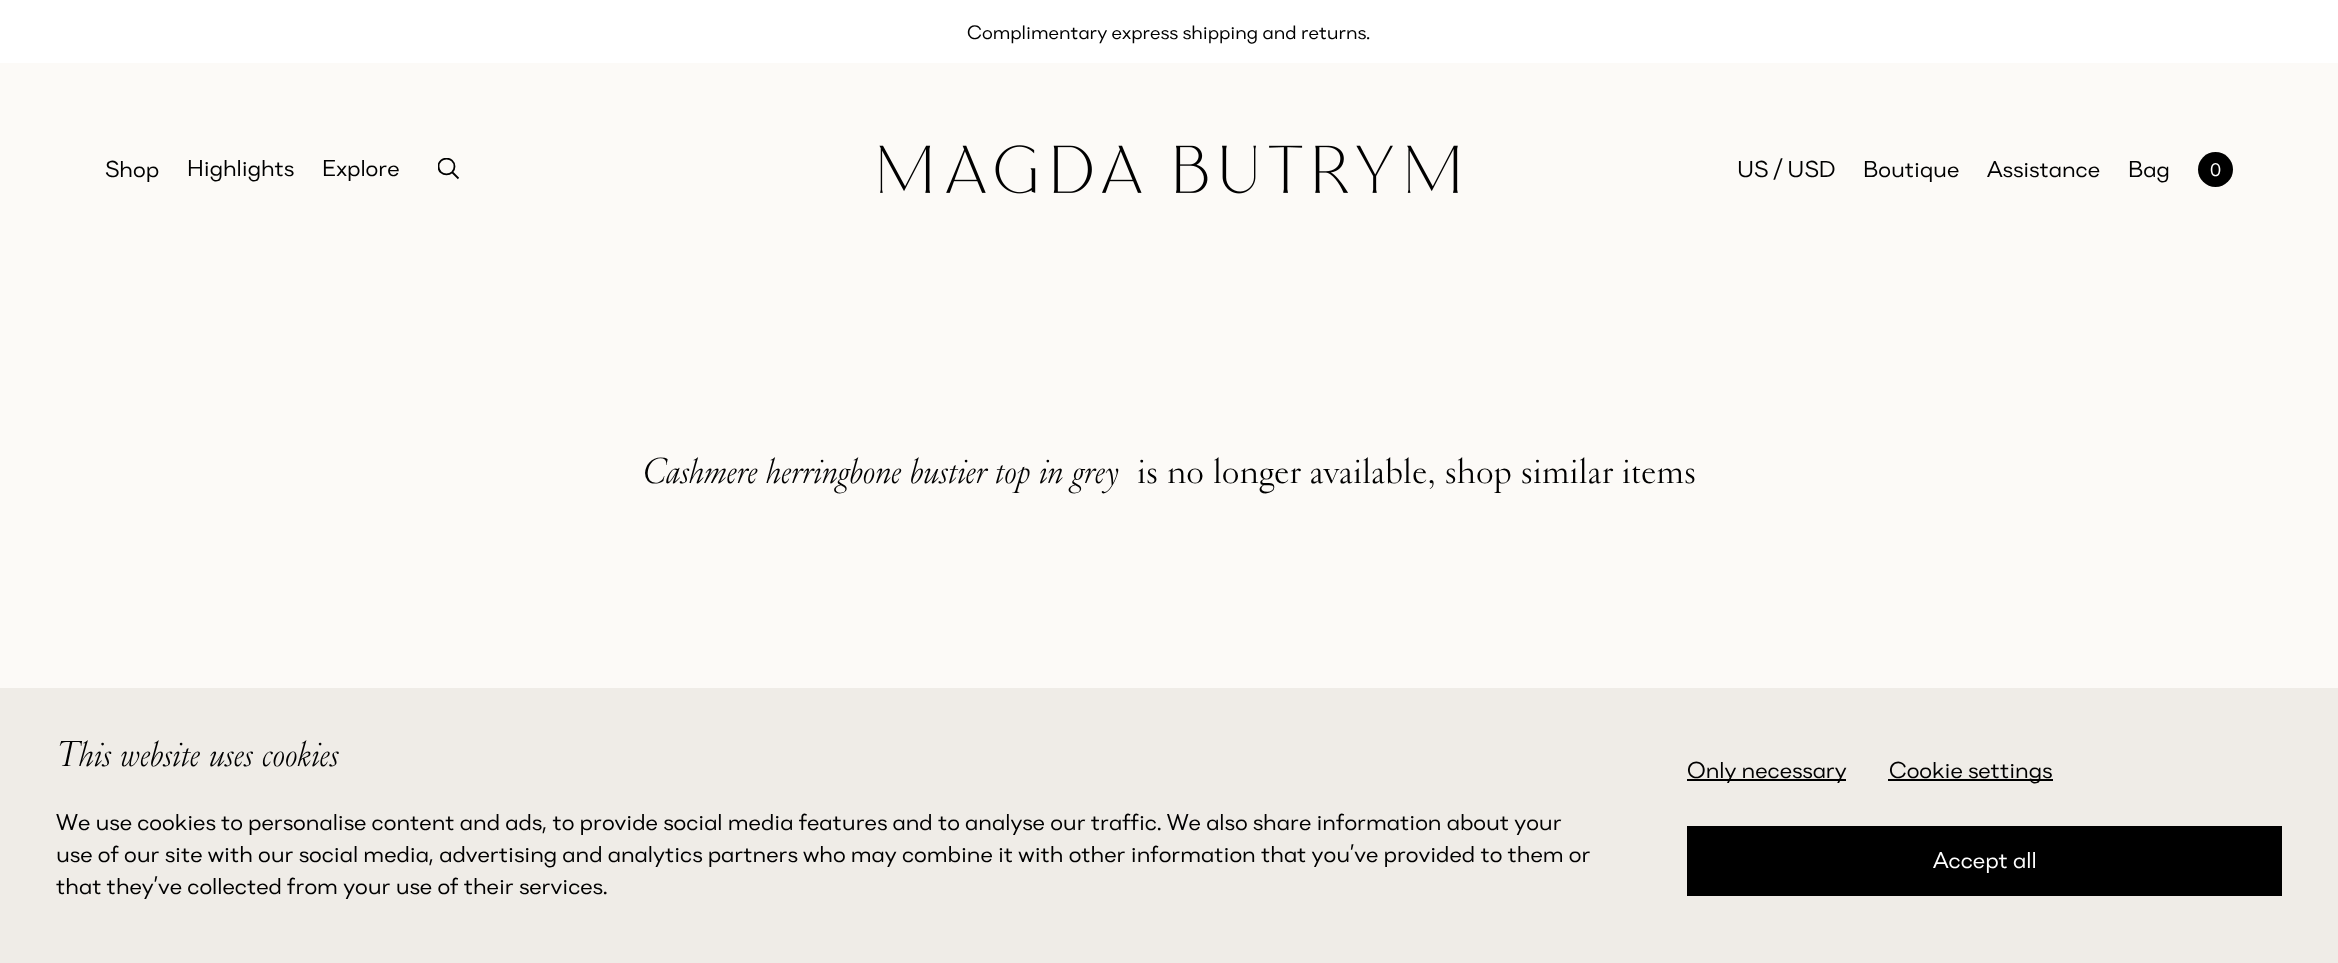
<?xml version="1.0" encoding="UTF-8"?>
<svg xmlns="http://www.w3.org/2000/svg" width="2338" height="963">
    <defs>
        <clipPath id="clip1"><rect x="438" y="158" width="22" height="22"/></clipPath>
    </defs>
    <rect width="100%" height="100%" fill="#FCFAF7"/>
    <rect x="0" y="0" width="2338" height="63" fill="#FFFFFF"/>
    <text x="967" y="39" font-family="'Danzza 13'" font-size="19.25" fill="#000000">Complimentary express shipping and returns.</text>
    <text x="105" y="177" font-family="'Danzza 13'" font-size="22.75" fill="#000000">Shop</text>
    <text x="187" y="176" font-family="'Danzza 13'" font-size="22.75" fill="#000000">Highlights</text>
    <text x="322" y="176" font-family="'Danzza 13'" font-size="22.75" fill="#000000">Explore</text>
    <g clip-path="url(#clip1)">
        <path d="M 454.5 166.5 C 454.5 177 438.5 177 438.5 166.5 C 438.5 156 454.5 156 454.5 166.5 Z" fill="none" stroke="#000000" stroke-width="1.8"/>
    </g>
    <path d="M 452 172 L 458.5 178.5" fill="none" stroke="#000000" stroke-width="1.8"/>
    <image x="879" y="145" width="579" height="49" href="img_01.png"/>
    <text x="1737" y="177" font-family="'Danzza 13'" font-size="22.75" fill="#000000">US / USD</text>
    <text x="1863" y="177" font-family="'Danzza 13'" font-size="22.75" fill="#000000">Boutique</text>
    <text x="1987" y="177" font-family="'Danzza 13'" font-size="22.75" fill="#000000">Assistance</text>
    <text x="2128" y="177" font-family="'Danzza 13'" font-size="22.75" fill="#000000">Bag</text>
    <circle cx="2215.5" cy="169.5" r="17.5" fill="#000000"/>
    <text x="2210" y="176" font-family="'Danzza 13'" font-size="18" fill="#FFFFFF">0</text>
    <text x="642" y="483" font-family="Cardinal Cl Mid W" font-size="35" font-style="italic" fill="#000000">Cashmere herringbone bustier top in grey</text>
    <text x="1137" y="483" font-family="Cardinal Cl Mid W" font-size="35" fill="#000000">is no longer available, shop similar items</text>
    <rect x="0" y="688" width="2338" height="275" fill="#EFECE7"/>
    <text x="56" y="766" font-family="Cardinal Cl Mid W" font-size="35" font-style="italic" fill="#000000">This website uses cookies</text>
    <text font-family="'Danzza 13'" font-size="22.75" fill="#000000">
        <tspan x="56" y="830">We use cookies to personalise content and ads, to provide social media features and to analyse our traffic. We also share information about your</tspan>
        <tspan x="56" y="862">use of our site with our social media, advertising and analytics partners who may combine it with other information that you’ve provided to them or</tspan>
        <tspan x="56" y="894">that they’ve collected from your use of their services.</tspan>
    </text>
    <rect x="1687" y="779" width="159" height="2" fill="#000000"/>
    <text x="1687" y="778" font-family="'Danzza 13'" font-size="22.75" fill="#000000">Only necessary</text>
    <rect x="1888" y="779" width="165" height="2" fill="#000000"/>
    <text x="1889" y="778" font-family="'Danzza 13'" font-size="22.75" fill="#000000">Cookie settings</text>
    <rect x="1687" y="826" width="595" height="70" fill="#000000"/>
    <text x="1933" y="868" font-family="'Danzza 13'" font-size="22.75" fill="#FFFFFF">Accept all</text>
</svg>
